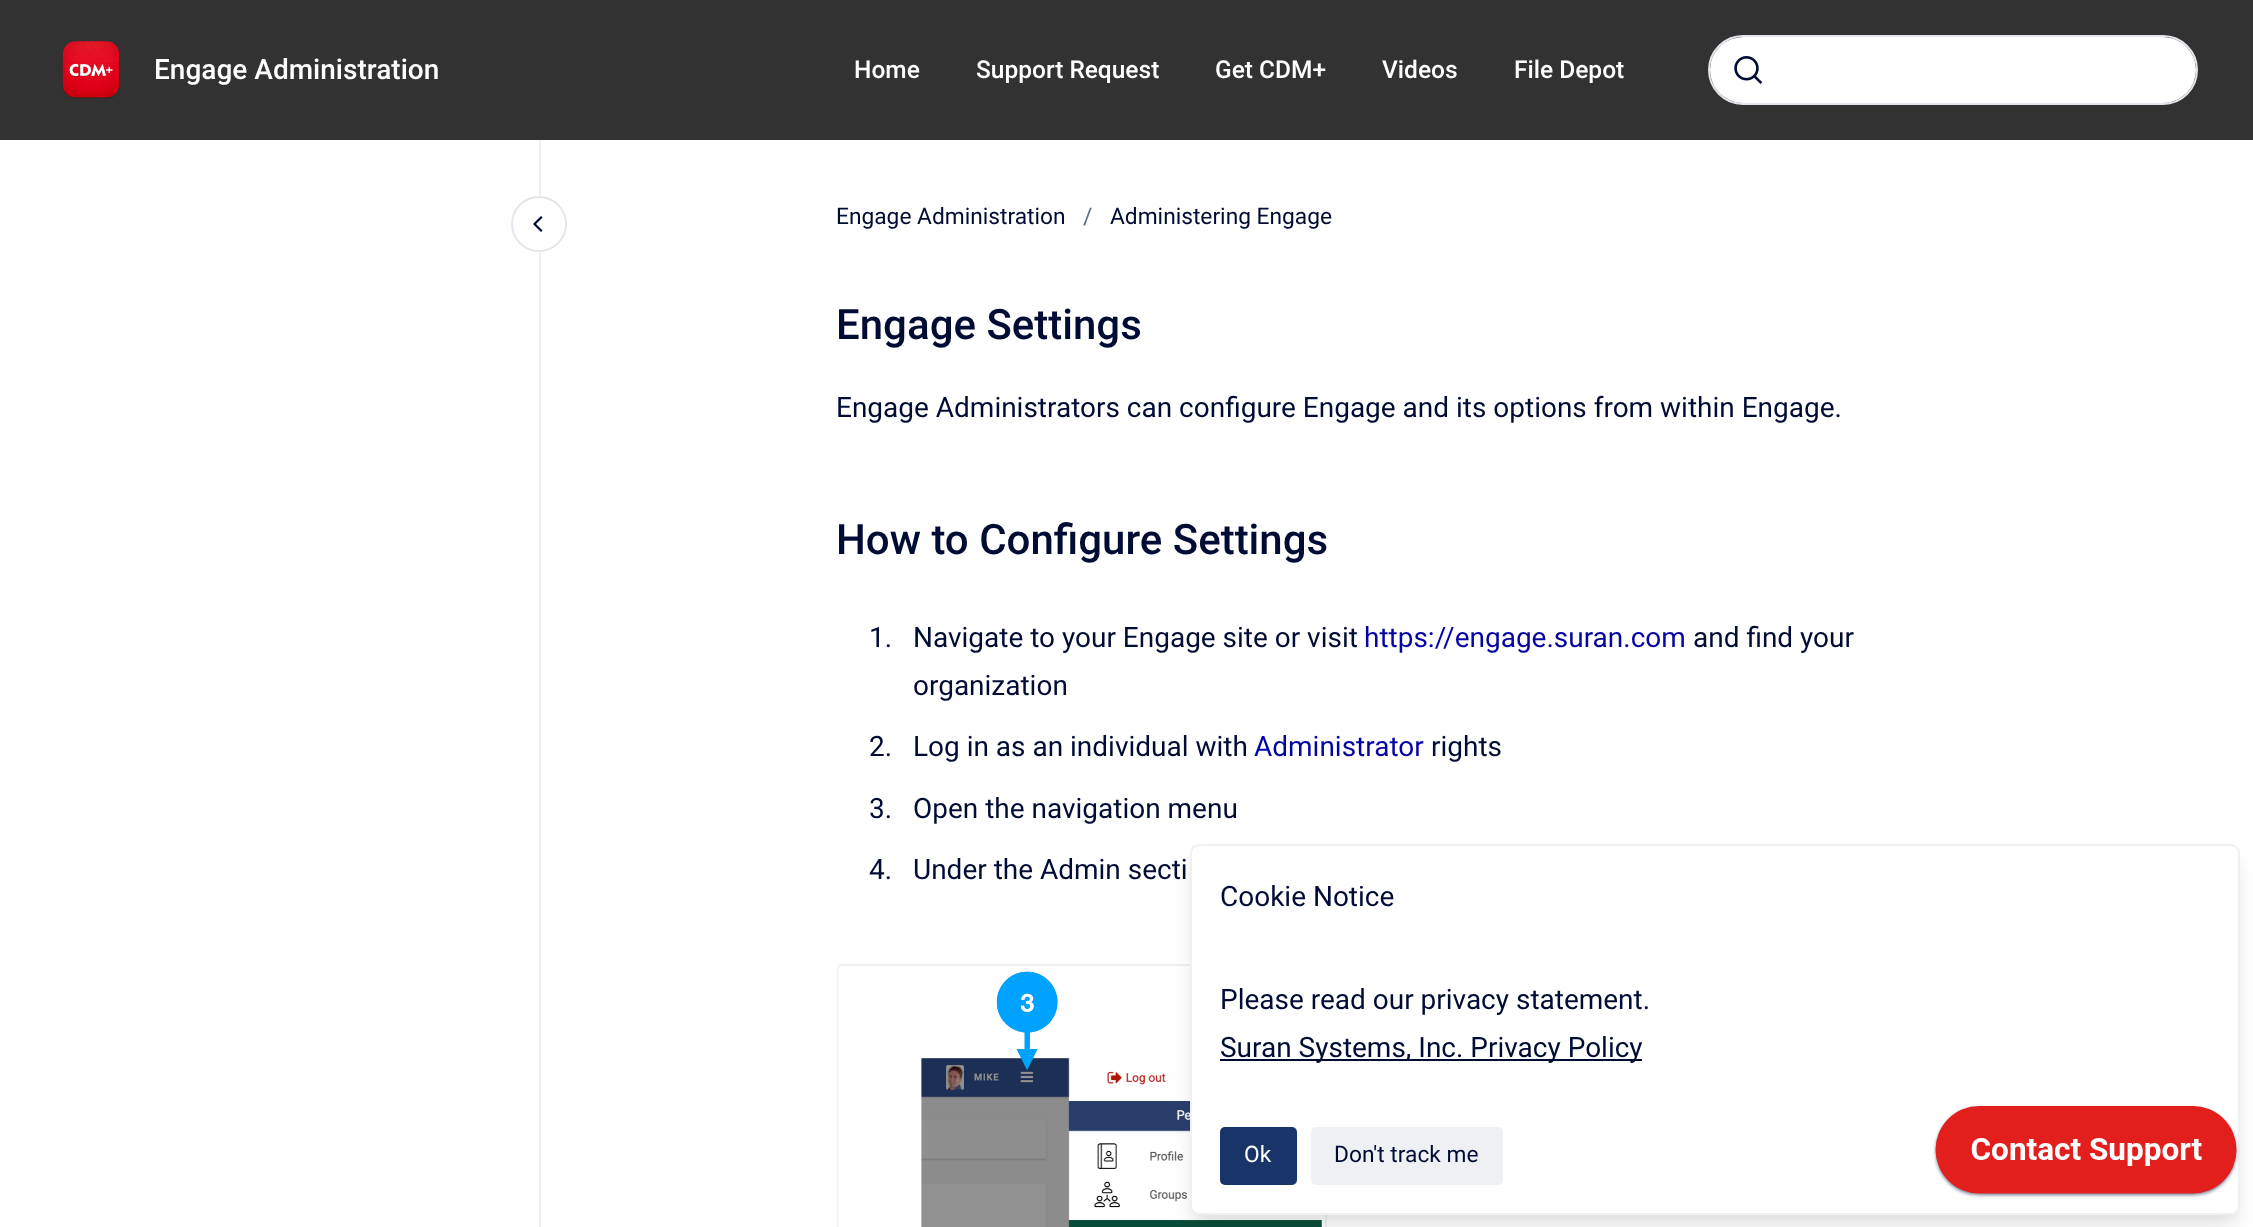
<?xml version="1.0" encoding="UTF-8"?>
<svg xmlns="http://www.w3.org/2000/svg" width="2253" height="1227">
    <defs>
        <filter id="blur1" x="-50%" y="-200%" width="200%" height="500%"><feGaussianBlur stdDeviation="5"/></filter>
        <filter id="blur2" x="-50%" y="-200%" width="200%" height="500%"><feGaussianBlur stdDeviation="13"/></filter>
    </defs>
    <rect width="100%" height="100%" fill="#FFFFFF"/>
    <rect x="0" y="0" width="2253" height="140" fill="#323232"/>
    <image x="62" y="41" width="58" height="58" href="img_01.png"/>
    <text x="154" y="79" font-family="Roboto" font-size="28" font-weight="500" fill="#FFFFFF">Engage Administration</text>
    <text x="854" y="78" font-family="Roboto" font-size="24.5" font-weight="500" fill="#FFFFFF">Home</text>
    <text x="976" y="78" font-family="Roboto" font-size="24.5" font-weight="500" fill="#FFFFFF">Support Request</text>
    <text x="1215" y="78" font-family="Roboto" font-size="24.5" font-weight="500" fill="#FFFFFF">Get CDM+</text>
    <text x="1382" y="78" font-family="Roboto" font-size="24.5" font-weight="500" fill="#FFFFFF">Videos</text>
    <text x="1514" y="78" font-family="Roboto" font-size="24.5" font-weight="500" fill="#FFFFFF">File Depot</text>
    <rect x="1709" y="36" width="488" height="68" rx="34" fill="none" stroke="#E2E5EB" stroke-width="2"/>
    <rect x="1710" y="37" width="486" height="66" rx="33" fill="#FFFFFF"/>
    <image x="1734" y="56" width="29" height="28" href="img_02.png"/>
    <rect x="539" y="140" width="2" height="1087" fill="#EFF0F4"/>
    <path d="M 539 252 C 524 252 511 239 511 224 C 511 209 524 196 539 196 C 554 196 567 209 567 224 C 567 239 554 252 539 252 Z" fill="#FFFFFF"/>
    <path d="M 539 251 C 524 251 512 239 512 224 C 512 209 524 197 539 197 C 554 197 566 209 566 224 C 566 239 554 251 539 251 Z" fill="none" stroke="#E2E5EB" stroke-width="1.8"/>
    <path d="M 541 230.5 L 534.5 224 L 541 217.5" fill="none" stroke="#000C34" stroke-width="2.2" stroke-linecap="square"/>
    <text x="836" y="224" font-family="Roboto" font-size="22.75" fill="#000C34">Engage Administration</text>
    <text x="1083" y="224" font-family="Roboto" font-size="22.75" fill="#5D6B8F">/</text>
    <text x="1110" y="224" font-family="Roboto" font-size="22.75" fill="#000C34">Administering Engage</text>
    <text x="836" y="339" font-family="Roboto" font-size="42" font-weight="500" fill="#000C34">Engage Settings</text>
    <text x="836" y="417" font-family="Roboto" font-size="28" fill="#000C34">Engage Administrators can configure Engage and its options from within Engage.</text>
    <text x="836" y="554" font-family="Roboto" font-size="42" font-weight="500" fill="#000C34">How to Configure Settings</text>
    <text x="869" y="647" font-family="Roboto" font-size="28" fill="#000C34">1.</text>
    <text x="913" y="647" font-family="Roboto" font-size="28" fill="#000C34">Navigate to your Engage site or visit</text>
    <text x="1364" y="647" font-family="Roboto" font-size="28" fill="#0404A3">https://engage.suran.com</text>
    <text x="1693" y="647" font-family="Roboto" font-size="28" fill="#000C34">and find your</text>
    <text x="913" y="695" font-family="Roboto" font-size="28" fill="#000C34">organization</text>
    <text x="869" y="756" font-family="Roboto" font-size="28" fill="#000C34">2.</text>
    <text x="913" y="756" font-family="Roboto" font-size="28" fill="#000C34">Log in as an individual with</text>
    <text x="1254" y="756" font-family="Roboto" font-size="28" fill="#0404A3">Administrator</text>
    <text x="1431" y="756" font-family="Roboto" font-size="28" fill="#000C34">rights</text>
    <text x="869" y="818" font-family="Roboto" font-size="28" fill="#000C34">3.</text>
    <text x="913" y="818" font-family="Roboto" font-size="28" fill="#000C34">Open the navigation menu</text>
    <text x="869" y="879" font-family="Roboto" font-size="28" fill="#000C34">4.</text>
    <text x="913" y="879" font-family="Roboto" font-size="28" fill="#000C34">Under the Admin secti</text>
    <rect x="838" y="965" width="488" height="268" rx="4" fill="none" stroke="#EFF0F4" stroke-width="2"/>
    <image x="838" y="966" width="484" height="261" href="img_03.png"/>
    <rect x="1194" y="854" width="1043" height="364" rx="5" fill="#000000" fill-opacity="0.05" filter="url(#blur1)"/>
    <rect x="1195" y="866" width="1040" height="361" rx="4" fill="#000000" fill-opacity="0.1" filter="url(#blur2)"/>
    <rect x="1191" y="845" width="1048" height="369" rx="8" fill="#FFFFFF" stroke="#EFF0F4" stroke-width="2"/>
    <text x="1220" y="906" font-family="Roboto" font-size="28" fill="#000C34">Cookie Notice</text>
    <text x="1220" y="1009" font-family="Roboto" font-size="28" fill="#000C34">Please read our privacy statement.</text>
    <rect x="1220" y="1059" width="422" height="2" fill="#000C34"/>
    <text x="1220" y="1057" font-family="Roboto" font-size="28" fill="#000C34">Suran Systems, Inc. Privacy Policy</text>
    <rect x="1220" y="1127" width="77" height="58" rx="5" fill="#193468"/>
    <text x="1244" y="1162" font-family="Roboto" font-size="22.75" fill="#FFFFFF">Ok</text>
    <rect x="1311" y="1127" width="192" height="58" rx="5" fill="#EFF0F4"/>
    <text x="1334" y="1162" font-family="Roboto" font-size="22.75" fill="#000C34">Don't track me</text>
    <image x="1932" y="1104" width="308" height="95" href="img_04.png"/>
</svg>
